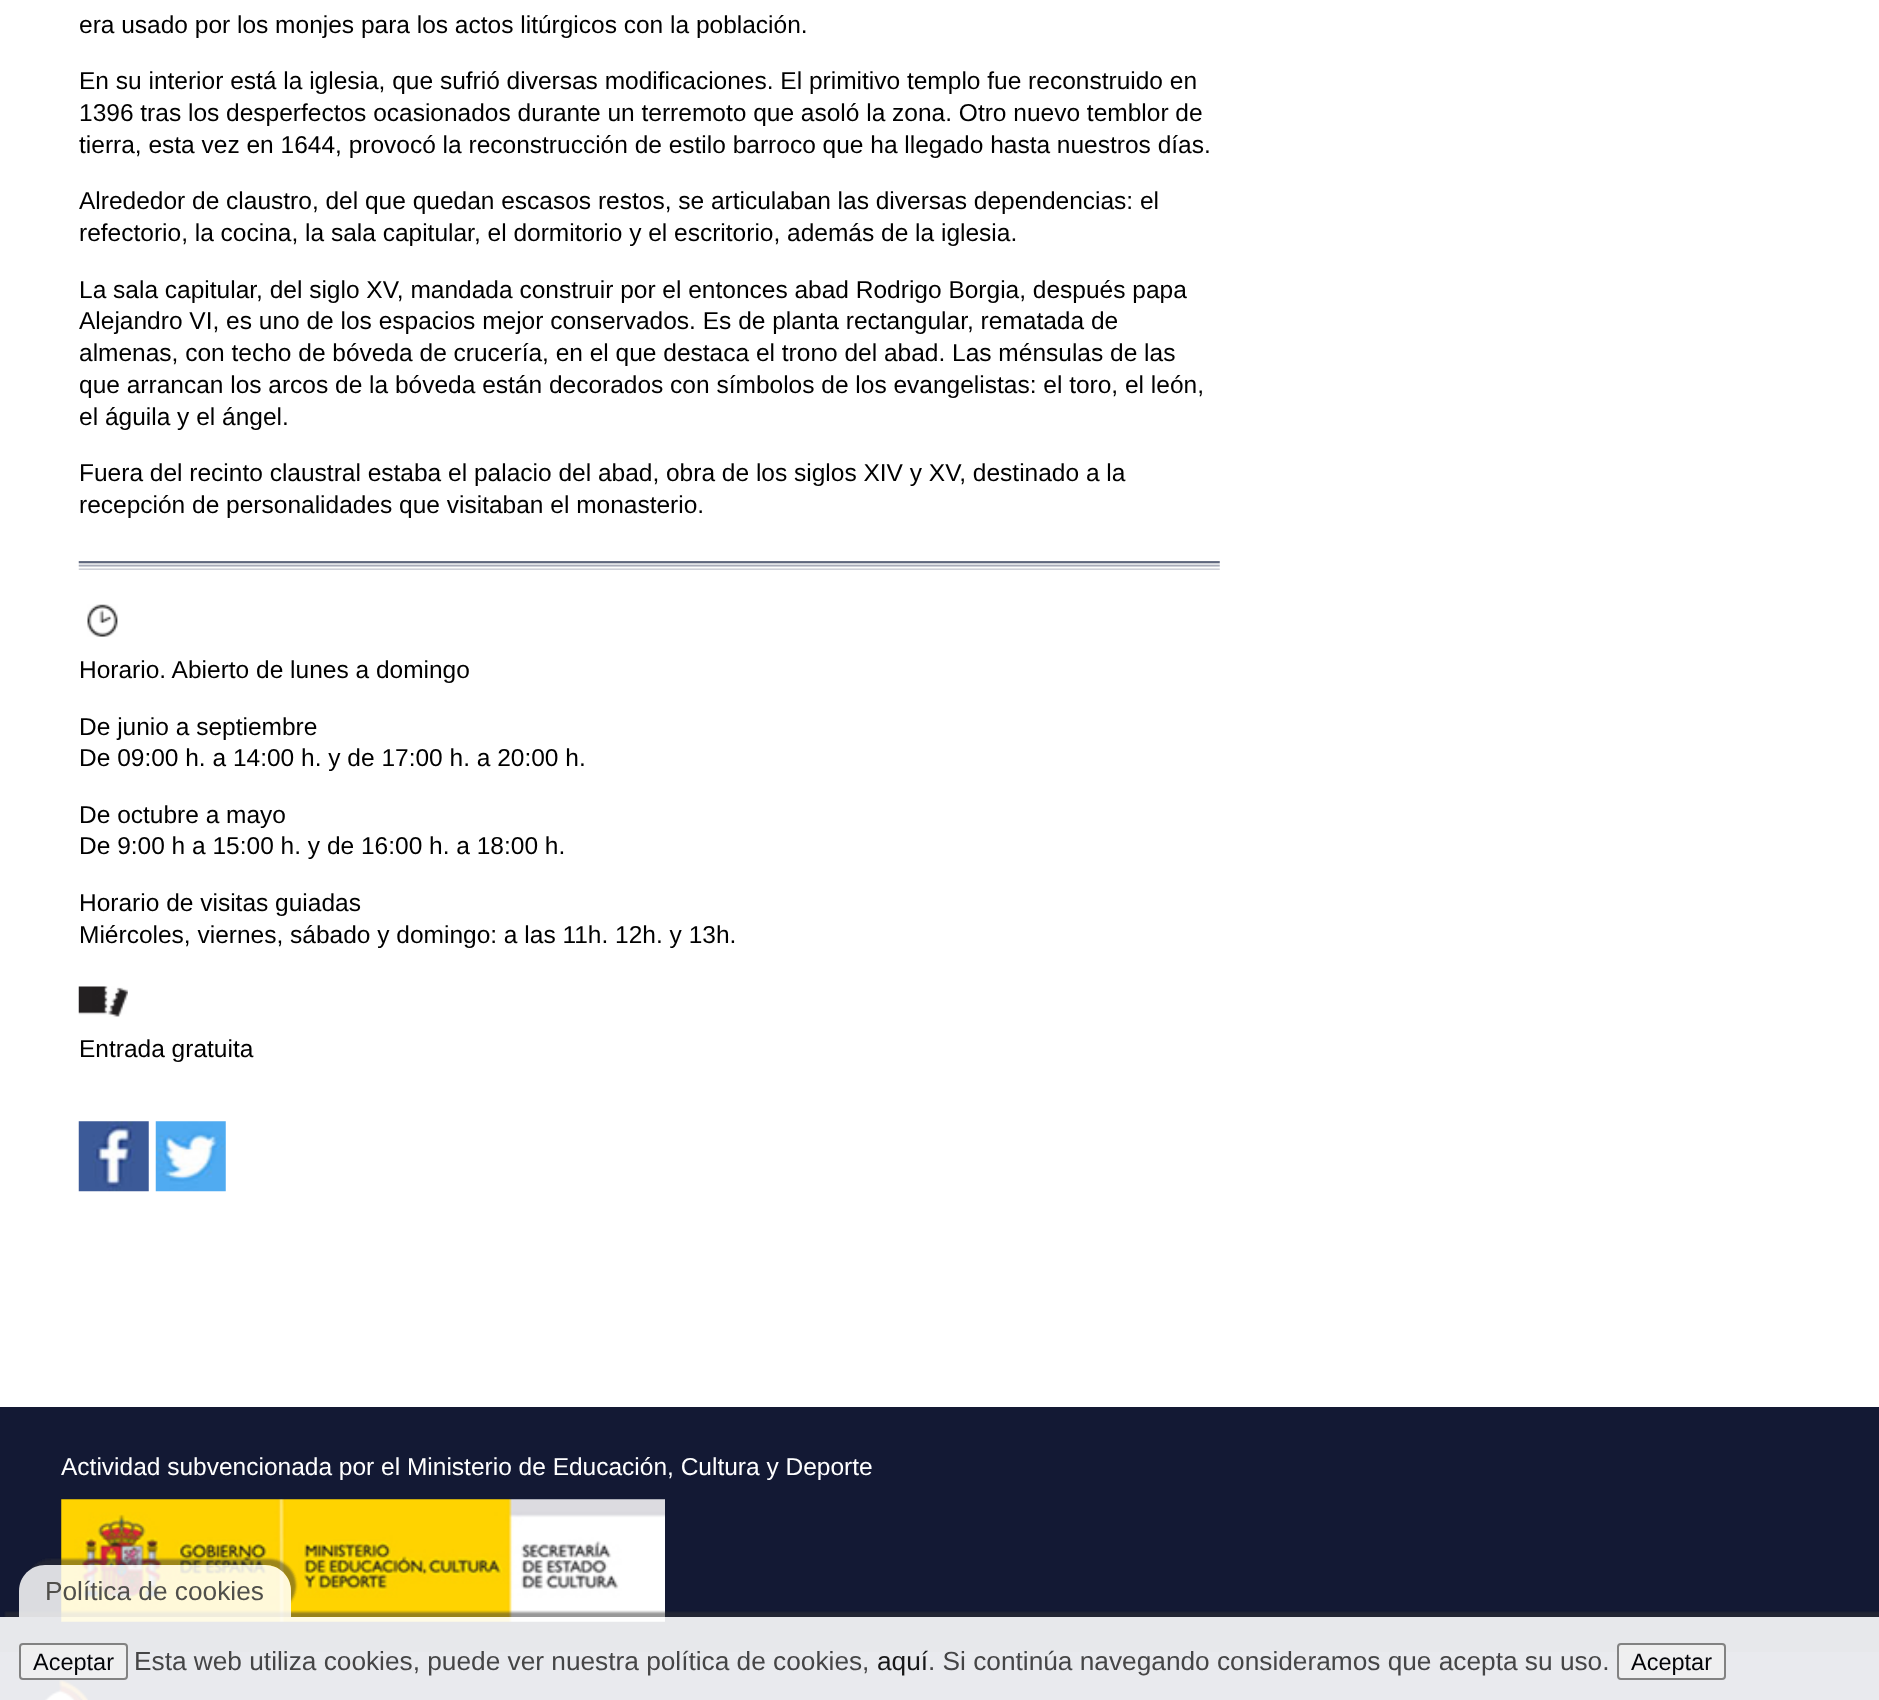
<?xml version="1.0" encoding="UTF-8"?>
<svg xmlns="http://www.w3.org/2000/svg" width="1879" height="1700">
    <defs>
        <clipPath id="clip1"><rect x="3" y="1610" width="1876" height="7"/></clipPath>
        <filter id="blur1" x="-50%" y="-200%" width="200%" height="500%"><feGaussianBlur stdDeviation="1"/></filter>
        <clipPath id="clip2"><path d="M 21 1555 H 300 V 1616 H 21 Z M 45 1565 H 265 C 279.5 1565 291 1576.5 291 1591 V 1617 H 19 V 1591 C 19 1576.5 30.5 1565 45 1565 Z" clip-rule="evenodd"/></clipPath>
    </defs>
    <rect width="100%" height="100%" fill="#FFFFFF"/>
    <text x="79" y="33" font-family="Liberation Sans" font-size="24.5" fill="#000000">era usado por los monjes para los actos litúrgicos con la población.</text>
    <text font-family="Liberation Sans" font-size="24.5" fill="#000000">
        <tspan x="79" y="89">En su interior está la iglesia, que sufrió diversas modificaciones. El primitivo templo fue reconstruido en</tspan>
        <tspan x="79" y="121">1396 tras los desperfectos ocasionados durante un terremoto que asoló la zona. Otro nuevo temblor de</tspan>
        <tspan x="79" y="153">tierra, esta vez en 1644, provocó la reconstrucción de estilo barroco que ha llegado hasta nuestros días.</tspan>
    </text>
    <text font-family="Liberation Sans" font-size="24.5" fill="#000000">
        <tspan x="79" y="209">Alrededor de claustro, del que quedan escasos restos, se articulaban las diversas dependencias: el</tspan>
        <tspan x="79" y="241">refectorio, la cocina, la sala capitular, el dormitorio y el escritorio, además de la iglesia.</tspan>
    </text>
    <text font-family="Liberation Sans" font-size="24.5" fill="#000000">
        <tspan x="79" y="298">La sala capitular, del siglo XV, mandada construir por el entonces abad Rodrigo Borgia, después papa</tspan>
        <tspan x="79" y="329">Alejandro VI, es uno de los espacios mejor conservados. Es de planta rectangular, rematada de</tspan>
        <tspan x="79" y="361">almenas, con techo de bóveda de crucería, en el que destaca el trono del abad. Las ménsulas de las</tspan>
        <tspan x="79" y="393">que arrancan los arcos de la bóveda están decorados con símbolos de los evangelistas: el toro, el león,</tspan>
        <tspan x="79" y="425">el águila y el ángel.</tspan>
    </text>
    <text font-family="Liberation Sans" font-size="24.5" fill="#000000">
        <tspan x="79" y="481">Fuera del recinto claustral estaba el palacio del abad, obra de los siglos XIV y XV, destinado a la</tspan>
        <tspan x="79" y="513">recepción de personalidades que visitaban el monasterio.</tspan>
    </text>
    <image x="78" y="561" width="1142" height="9" href="img_01.png"/>
    <image x="87" y="604" width="31" height="33" href="img_02.png"/>
    <text x="79" y="678" font-family="Liberation Sans" font-size="24.5" fill="#000000">Horario. Abierto de lunes a domingo</text>
    <text font-family="Liberation Sans" font-size="24.5" fill="#000000">
        <tspan x="79" y="735">De junio a septiembre</tspan>
        <tspan x="79" y="766">De 09:00 h. a 14:00 h. y de 17:00 h. a 20:00 h.</tspan>
    </text>
    <text font-family="Liberation Sans" font-size="24.5" fill="#000000">
        <tspan x="79" y="823">De octubre a mayo</tspan>
        <tspan x="79" y="854">De 9:00 h a 15:00 h. y de 16:00 h. a 18:00 h.</tspan>
    </text>
    <text font-family="Liberation Sans" font-size="24.5" fill="#000000">
        <tspan x="79" y="911">Horario de visitas guiadas</tspan>
        <tspan x="79" y="943">Miércoles, viernes, sábado y domingo: a las 11h. 12h. y 13h.</tspan>
    </text>
    <image x="78" y="986" width="50" height="31" href="img_03.png"/>
    <text x="79" y="1057" font-family="Liberation Sans" font-size="24.5" fill="#000000">Entrada gratuita</text>
    <image x="78" y="1121" width="71" height="71" href="img_04.png"/>
    <image x="155" y="1121" width="71" height="71" href="img_05.png"/>
    <rect x="0" y="1652" width="1879" height="48" fill="#1E2B50"/>
    <rect x="0" y="1407" width="1879" height="245" fill="#131934"/>
    <text x="61" y="1475" font-family="Liberation Sans" font-size="24.5" fill="#FFFFFF">Actividad subvencionada por el Ministerio de Educación, Cultura y Deporte</text>
    <image x="61" y="1499" width="604" height="123" href="img_06.png"/>
    <image x="45" y="1679" width="44" height="21" href="img_07.png"/>
    <g clip-path="url(#clip1)">
        <rect x="5" y="1612" width="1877" height="84" fill="#323232" fill-opacity="0.5" filter="url(#blur1)"/>
    </g>
    <rect x="0" y="1617" width="1879" height="83" fill="#FFFFFF" fill-opacity="0.9"/>
    <g clip-path="url(#clip2)">
        <rect x="25" y="1559" width="271" height="53" rx="26.5" fill="#323232" fill-opacity="0.48" filter="url(#blur1)"/>
    </g>
    <path d="M 45 1565 H 265 C 279.5 1565 291 1576.5 291 1591 V 1617 H 19 V 1591 C 19 1576.5 30.5 1565 45 1565 Z" fill="#FFFFFF" fill-opacity="0.85"/>
    <text x="45" y="1600" font-family="Liberation Sans" font-size="26.25" fill="#504F4B">Política de cookies</text>
    <rect x="19" y="1643" width="109" height="37" rx="4" fill="#EFEFEF" fill-opacity="0.9"/>
    <rect x="20" y="1644" width="107" height="35" rx="3" fill="none" stroke="#767676" stroke-opacity="0.9" stroke-width="2"/>
    <text x="33" y="1670" font-family="Liberation Sans" font-size="23.5" fill="#030408">Aceptar</text>
    <text x="134" y="1670" font-family="Liberation Sans" font-size="26.25" fill="#454546">Esta web utiliza cookies, puede ver nuestra política de cookies,</text>
    <text x="877" y="1670" font-family="Liberation Sans" font-size="26.25" fill="#171718">aquí</text>
    <text x="928" y="1670" font-family="Liberation Sans" font-size="26.25" fill="#454546">. Si continúa navegando consideramos que acepta su uso.</text>
    <rect x="1618" y="1644" width="107" height="35" rx="3" fill="#EFEFEF" fill-opacity="0.9" stroke="#828282" stroke-width="2"/>
    <text x="1631" y="1670" font-family="Liberation Sans" font-size="23.5" fill="#030408">Aceptar</text>
</svg>
